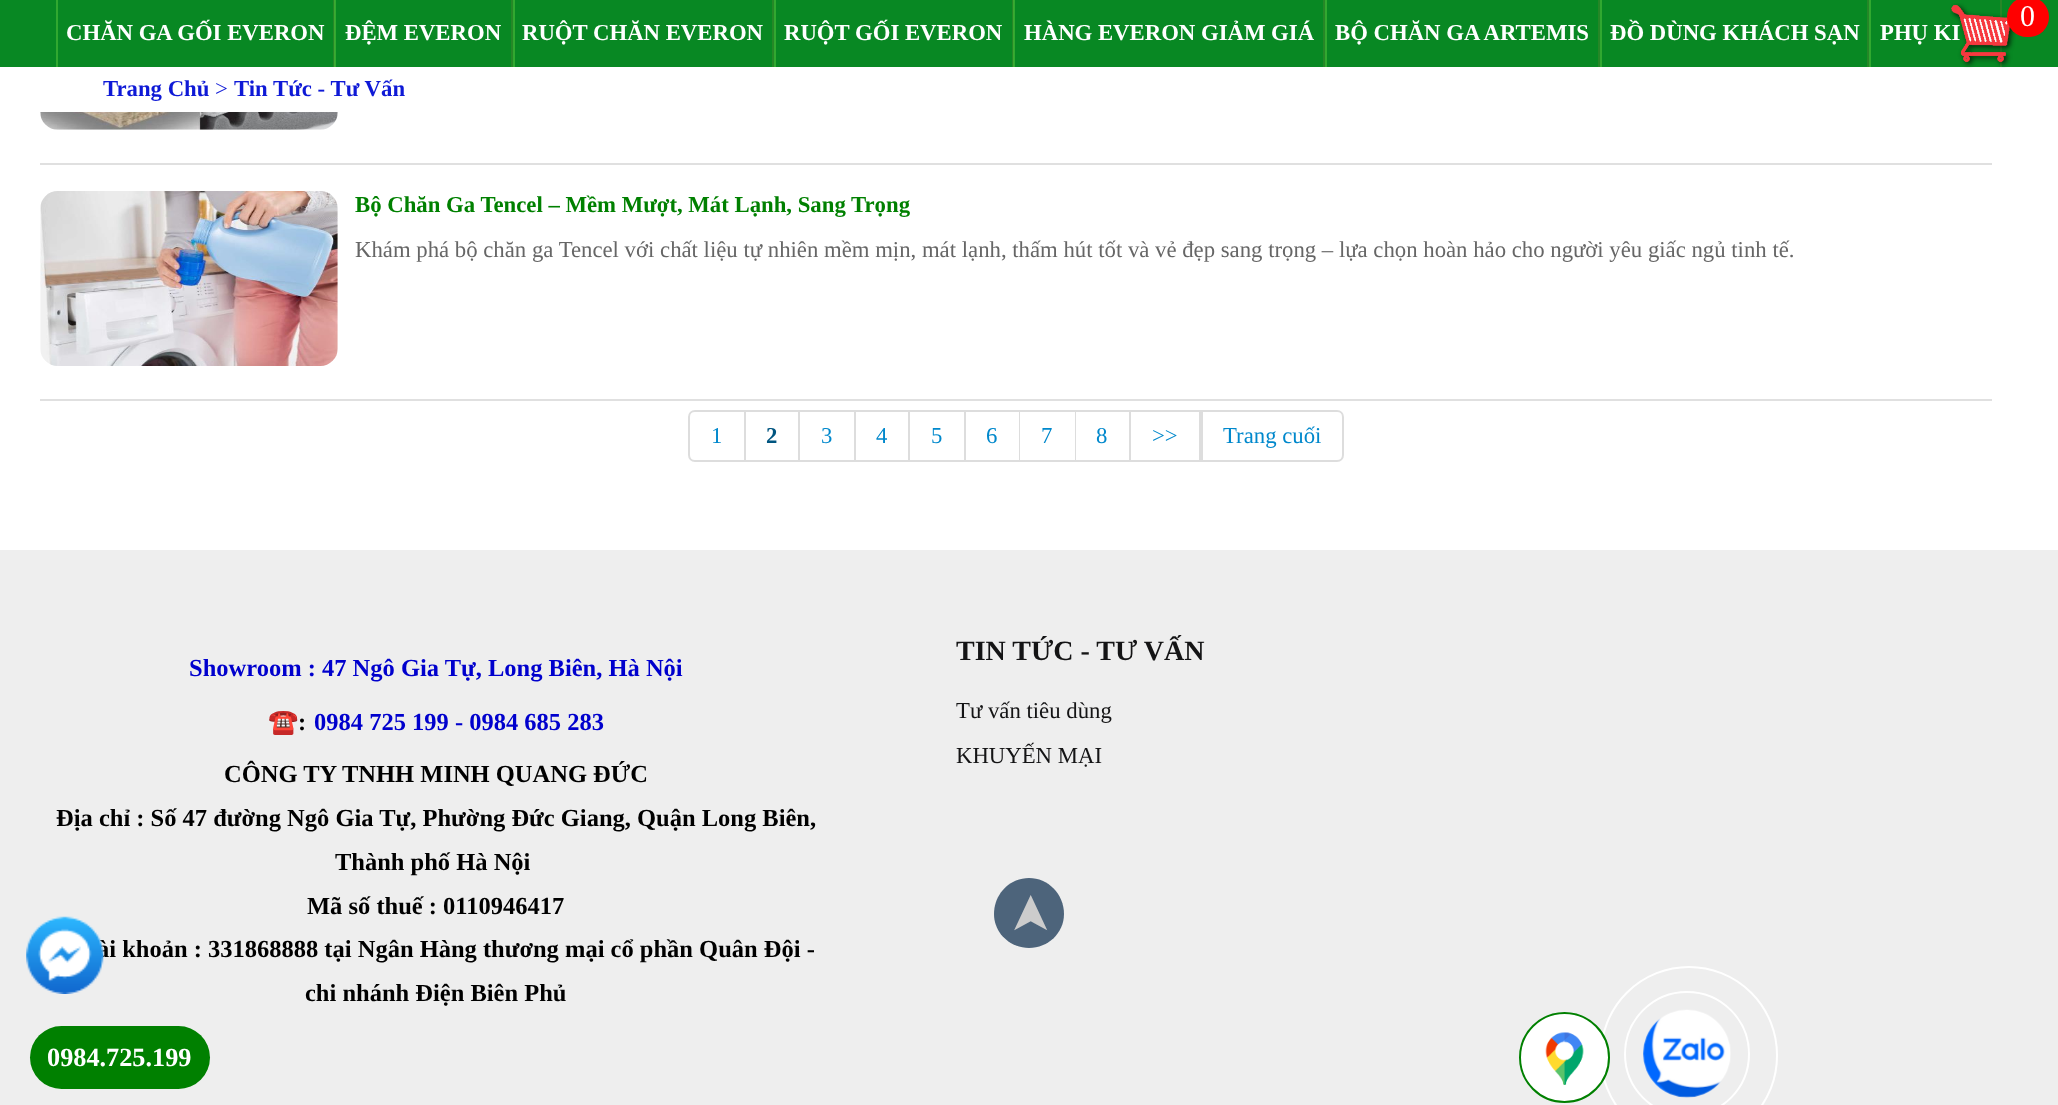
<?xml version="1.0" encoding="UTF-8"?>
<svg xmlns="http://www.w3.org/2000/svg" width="2058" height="1105">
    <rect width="100%" height="100%" fill="#FFFFFF"/>
    <rect x="0" y="0" width="2058" height="67" fill="#088823"/>
    <rect x="2000" y="0" width="2" height="67" fill="#268727"/>
    <text x="1880" y="40" font-family="Liberation Serif" font-size="22.75" font-weight="700" fill="#FFFFFF">PHỤ KI</text>
    <image x="1950" y="3" width="66" height="65" href="img_01.png"/>
    <rect x="2007" y="-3" width="42" height="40" rx="20" fill="#FF0000"/>
    <text x="2020" y="26" font-family="Liberation Serif" font-size="30" fill="#FFFFFF">0</text>
    <rect x="333" y="0" width="2" height="67" fill="#268727"/>
    <rect x="56" y="0" width="2" height="67" fill="#31A830"/>
    <text x="66" y="40" font-family="Liberation Serif" font-size="22.75" font-weight="700" fill="#FFFFFF">CHĂN GA GỐI EVERON</text>
    <rect x="511" y="0" width="2" height="67" fill="#268727"/>
    <rect x="334" y="0" width="2" height="67" fill="#52C23B" fill-opacity="0.56"/>
    <text x="345" y="40" font-family="Liberation Serif" font-size="22.75" font-weight="700" fill="#FFFFFF">ĐỆM EVERON</text>
    <rect x="772" y="0" width="2" height="67" fill="#268727"/>
    <rect x="513" y="0" width="2" height="67" fill="#31A830"/>
    <text x="522" y="40" font-family="Liberation Serif" font-size="22.75" font-weight="700" fill="#FFFFFF">RUỘT CHĂN EVERON</text>
    <rect x="1012" y="0" width="2" height="67" fill="#268727"/>
    <rect x="774" y="0" width="2" height="67" fill="#31A830"/>
    <text x="784" y="40" font-family="Liberation Serif" font-size="22.75" font-weight="700" fill="#FFFFFF">RUỘT GỐI EVERON</text>
    <rect x="1323" y="0" width="2" height="67" fill="#268727"/>
    <rect x="1013" y="0" width="2" height="67" fill="#52C23B" fill-opacity="0.56"/>
    <text x="1024" y="40" font-family="Liberation Serif" font-size="22.75" font-weight="700" fill="#FFFFFF">HÀNG EVERON GIẢM GIÁ</text>
    <rect x="1598" y="0" width="2" height="67" fill="#268727"/>
    <rect x="1325" y="0" width="2" height="67" fill="#31A830"/>
    <text x="1335" y="40" font-family="Liberation Serif" font-size="22.75" font-weight="700" fill="#FFFFFF">BỘ CHĂN GA ARTEMIS</text>
    <rect x="1867" y="0" width="2" height="67" fill="#268727"/>
    <rect x="1600" y="0" width="2" height="67" fill="#31A830"/>
    <text x="1610" y="40" font-family="Liberation Serif" font-size="22.75" font-weight="700" fill="#FFFFFF">ĐỒ DÙNG KHÁCH SẠN</text>
    <rect x="1869" y="0" width="2" height="67" fill="#31A830"/>
    <text x="103" y="96" font-family="Liberation Serif" font-size="22.75" font-weight="700" fill="#0E19D6">Trang Chủ</text>
    <text x="215" y="96" font-family="Liberation Serif" font-size="22.75" fill="#0E19D6">&gt;</text>
    <text x="234" y="96" font-family="Liberation Serif" font-size="22.75" font-weight="700" fill="#0E19D6">Tin Tức - Tư Vấn</text>
    <rect x="40" y="163" width="1952" height="2" fill="#E0E0E0"/>
    <image x="40" y="112" width="298" height="18" href="img_02.png"/>
    <rect x="40" y="399" width="1952" height="2" fill="#E0E0E0"/>
    <image x="40" y="191" width="298" height="175" href="img_03.png"/>
    <text x="355" y="212" font-family="Liberation Serif" font-size="22.75" font-weight="700" fill="#008000">Bộ Chăn Ga Tencel – Mềm Mượt, Mát Lạnh, Sang Trọng</text>
    <text x="355" y="257" font-family="Liberation Serif" font-size="22.75" fill="#666666">Khám phá bộ chăn ga Tencel với chất liệu tự nhiên mềm mịn, mát lạnh, thấm hút tốt và vẻ đẹp sang trọng – lựa chọn hoàn hảo cho người yêu giấc ngủ tinh tế.</text>
    <path d="M 695 411 H 745 V 461 H 695 C 691.5 461 689 458.5 689 455 V 417 C 689 413.5 691.5 411 695 411 Z" fill="none" stroke="#DDDDDD" stroke-width="2"/>
    <text x="711" y="443" font-family="Liberation Serif" font-size="22.75" fill="#0088CC">1</text>
    <rect x="746" y="410" width="455" height="2" fill="#DDDDDD"/>
    <rect x="798" y="410" width="2" height="52" fill="#DDDDDD"/>
    <rect x="746" y="460" width="54" height="2" fill="#DDDDDD"/>
    <text x="766" y="443" font-family="Liberation Serif" font-size="22.75" font-weight="700" fill="#005580">2</text>
    <rect x="854" y="410" width="2" height="52" fill="#DDDDDD"/>
    <rect x="800" y="460" width="56" height="2" fill="#DDDDDD"/>
    <text x="821" y="443" font-family="Liberation Serif" font-size="22.75" fill="#0088CC">3</text>
    <rect x="908" y="410" width="2" height="52" fill="#DDDDDD"/>
    <rect x="856" y="460" width="54" height="2" fill="#DDDDDD"/>
    <text x="876" y="443" font-family="Liberation Serif" font-size="22.75" fill="#0088CC">4</text>
    <rect x="964" y="410" width="2" height="52" fill="#DDDDDD"/>
    <rect x="910" y="460" width="56" height="2" fill="#DDDDDD"/>
    <text x="931" y="443" font-family="Liberation Serif" font-size="22.75" fill="#0088CC">5</text>
    <rect x="1019" y="410" width="1" height="52" fill="#DDDDDD"/>
    <rect x="966" y="460" width="54" height="2" fill="#DDDDDD"/>
    <text x="986" y="443" font-family="Liberation Serif" font-size="22.75" fill="#0088CC">6</text>
    <rect x="1075" y="410" width="1" height="52" fill="#DDDDDD"/>
    <rect x="1020" y="460" width="56" height="2" fill="#DDDDDD"/>
    <text x="1041" y="443" font-family="Liberation Serif" font-size="22.75" fill="#0088CC">7</text>
    <rect x="1129" y="410" width="2" height="52" fill="#DDDDDD"/>
    <rect x="1076" y="460" width="55" height="2" fill="#DDDDDD"/>
    <text x="1096" y="443" font-family="Liberation Serif" font-size="22.75" fill="#0088CC">8</text>
    <rect x="1199" y="410" width="2" height="52" fill="#DDDDDD"/>
    <rect x="1131" y="460" width="70" height="2" fill="#DDDDDD"/>
    <text x="1152" y="443" font-family="Liberation Serif" font-size="22.75" fill="#0088CC">&gt;&gt;</text>
    <path d="M 1202 411 H 1337 C 1340.5 411 1343 413.5 1343 417 V 455 C 1343 458.5 1340.5 461 1337 461 H 1202 Z" fill="none" stroke="#DDDDDD" stroke-width="2"/>
    <text x="1223" y="443" font-family="Liberation Serif" font-size="22.75" fill="#0088CC">Trang cuối</text>
    <rect x="0" y="550" width="2058" height="555" fill="#EEEEEE"/>
    <text x="189" y="676" font-family="Liberation Serif" font-size="24.5" font-weight="700" fill="#0000CD">Showroom : 47 Ngô Gia Tự, Long Biên, Hà Nội</text>
    <text x="268" y="730" font-family="Noto Color Emoji" font-size="24.5" font-weight="700" fill="#000000">☎️</text>
    <text x="298" y="730" font-family="Liberation Serif" font-size="24.5" font-weight="700" fill="#000000">:</text>
    <text x="314" y="730" font-family="Liberation Serif" font-size="24.5" font-weight="700" fill="#0000CD">0984 725 199 - 0984 685 283</text>
    <text x="224" y="782" font-family="Liberation Serif" font-size="24.5" font-weight="700" fill="#000000">CÔNG TY TNHH MINH QUANG ĐỨC</text>
    <text x="56" y="826" font-family="Liberation Serif" font-size="24.5" font-weight="700" fill="#000000">Địa chỉ : Số 47 đường Ngô Gia Tự, Phường Đức Giang, Quận Long Biên,</text>
    <text x="335" y="870" font-family="Liberation Serif" font-size="24.5" font-weight="700" fill="#000000">Thành phố Hà Nội</text>
    <text x="307" y="914" font-family="Liberation Serif" font-size="24.5" font-weight="700" fill="#000000">Mã số thuế : 0110946417</text>
    <text x="97" y="957" font-family="Liberation Serif" font-size="24.5" font-weight="700" fill="#000000">ài khoản : 331868888 tại Ngân Hàng thương mại cổ phần Quân Đội -</text>
    <text x="305" y="1001" font-family="Liberation Serif" font-size="24.5" font-weight="700" fill="#000000">chi nhánh Điện Biên Phủ</text>
    <text x="956" y="660" font-family="Liberation Serif" font-size="28" font-weight="700" fill="#141415">TIN TỨC - TƯ VẤN</text>
    <text font-family="Liberation Serif" font-size="22.75" fill="#141415">
        <tspan x="956" y="718">Tư vấn tiêu dùng</tspan>
        <tspan x="956" y="763">KHUYẾN MẠI</tspan>
    </text>
    <image x="26" y="916" width="78" height="78" href="img_04.png"/>
    <path d="M 994 914 C 994 894 1010 878 1029 878 C 1048 878 1064 894 1064 914 C 1064 933 1048 948 1029 948 C 1010 948 994 933 994 914 Z" fill="#4D647B"/>
    <text x="1047" y="936" transform="rotate(-90 1047 936)" font-family="DejaVu Sans" font-size="52" fill="#CCCCCC">➤</text>
    <rect x="30" y="1026" width="180" height="63" rx="31.5" fill="#008000"/>
    <text x="47" y="1066" font-family="Liberation Serif" font-size="26.25" font-weight="700" fill="#FFFFFF">0984.725.199</text>
    <image x="1643" y="1009" width="88" height="89" href="img_06.png"/>
    <rect x="1601" y="967" width="176" height="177" rx="88" fill="none" stroke="#FFFFFF" stroke-width="2"/>
    <circle cx="1564.5" cy="1057.5" r="44.5" fill="#FFFFFF" stroke="#008000" stroke-width="2"/>
    <image x="1545" y="1032" width="39" height="53" href="img_05.png"/>
    <circle cx="1687" cy="1054" r="62" fill="none" stroke="#FFFFFF" stroke-width="2"/>
</svg>
